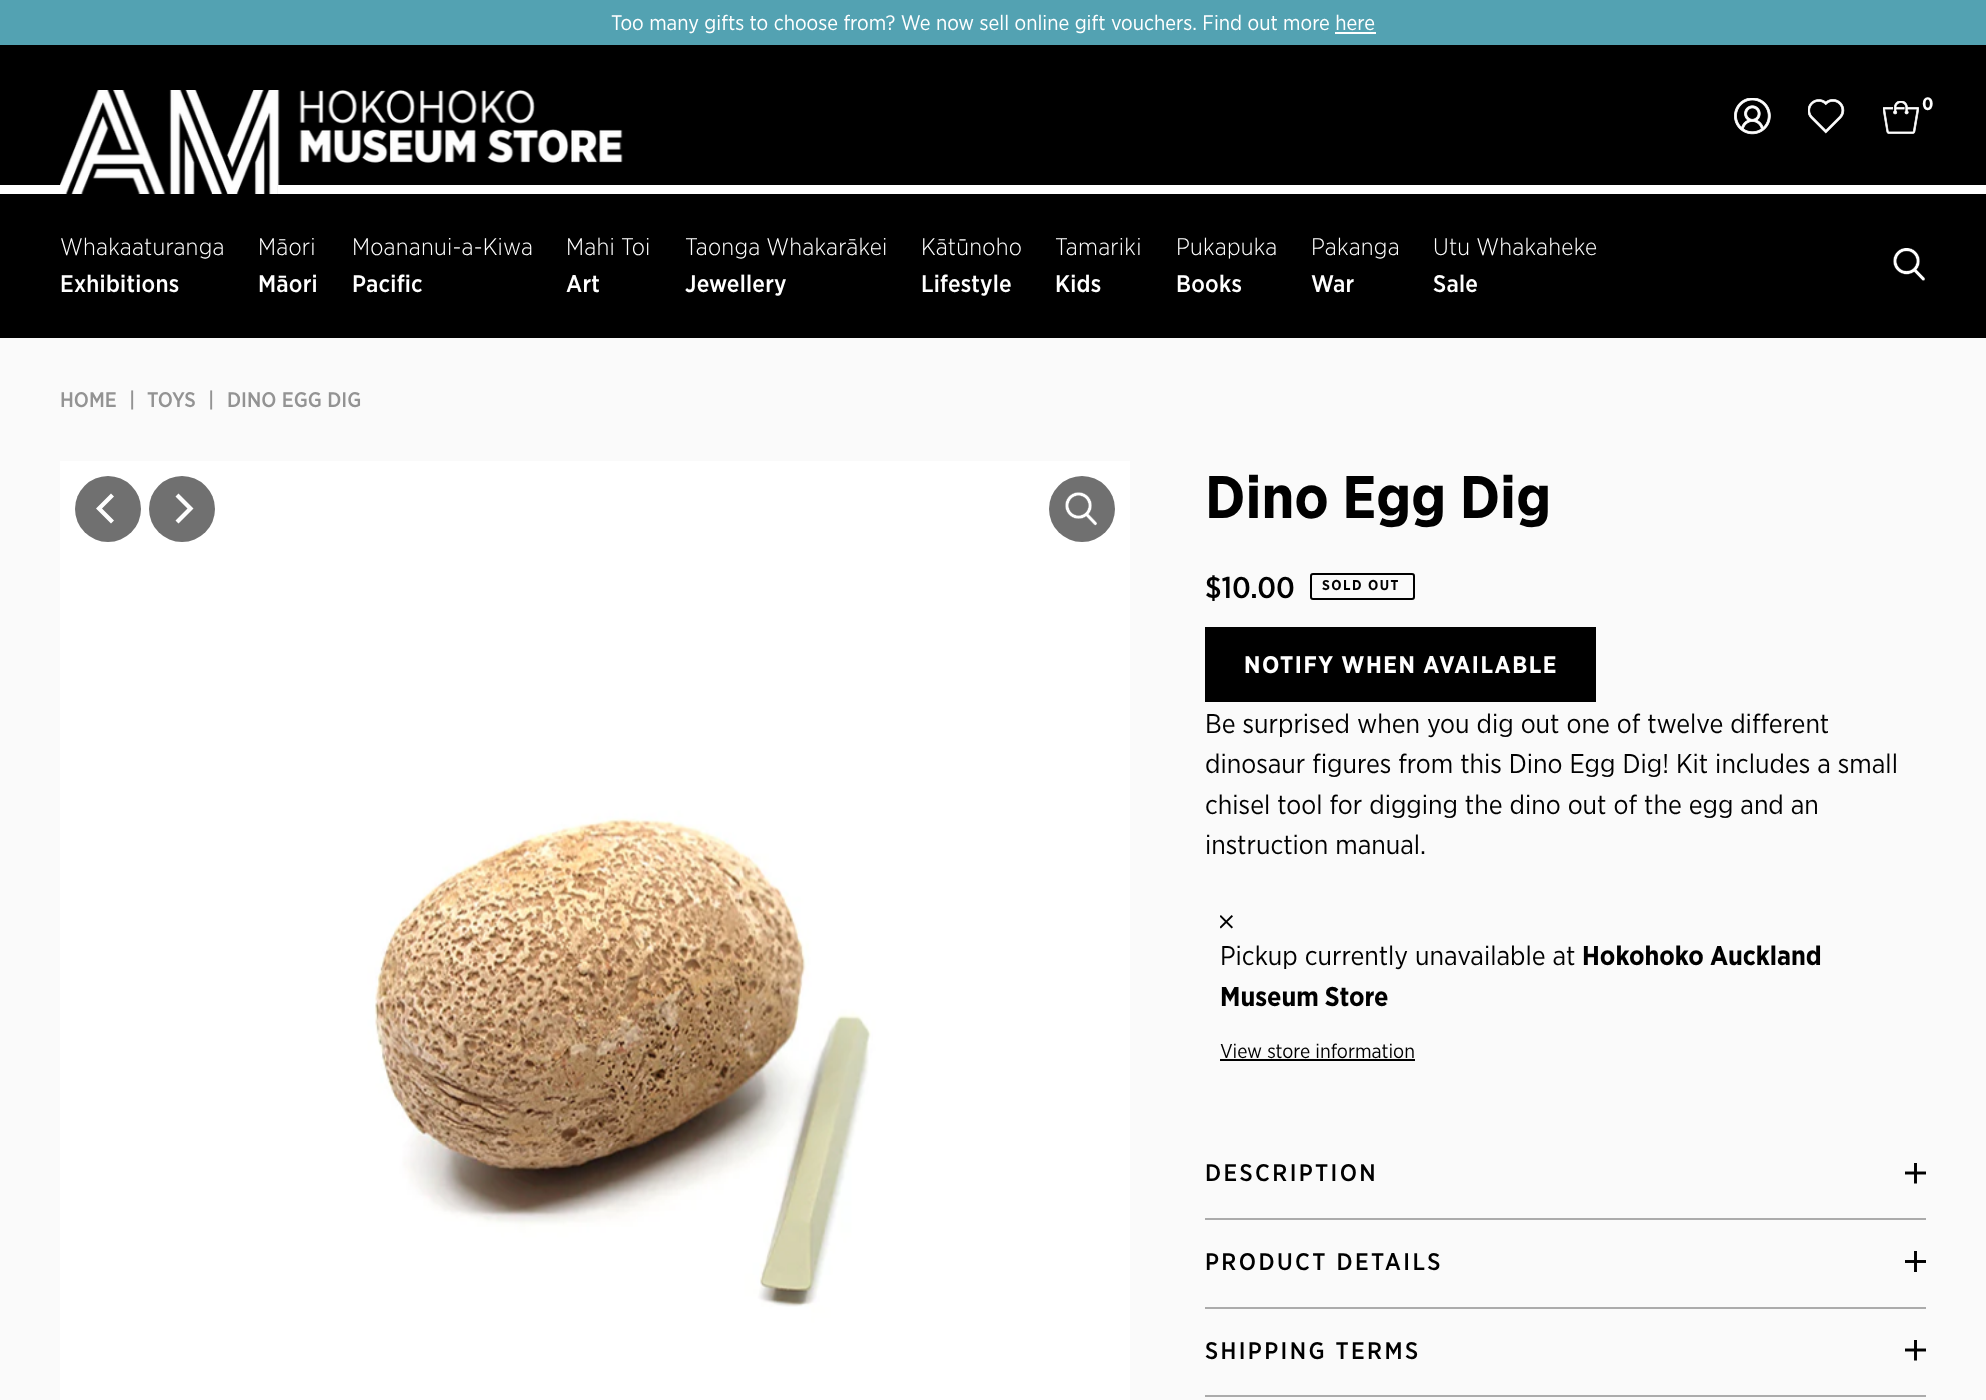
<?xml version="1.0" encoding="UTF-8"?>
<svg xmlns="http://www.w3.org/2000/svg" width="1986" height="1400">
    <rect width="100%" height="100%" fill="#FAFAFA"/>
    <rect x="0" y="0" width="1986" height="45" fill="#53A2B2"/>
    <text x="611" y="30" font-family="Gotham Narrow" font-size="21" fill="#FFFFFF">Too many gifts to choose from? We now sell online gift vouchers. Find out more here</text>
    <rect x="1335" y="32" width="41" height="2" fill="#FFFFFF"/>
    <rect x="0" y="45" width="1986" height="293" fill="#000000"/>
    <image x="60" y="90" width="563" height="104" href="img_01.png"/>
    <rect x="0" y="185" width="62" height="9" fill="#FFFFFF"/>
    <rect x="278" y="185" width="1708" height="9" fill="#FFFFFF"/>
    <image x="1734" y="98" width="37" height="37" href="img_02.png"/>
    <image x="1808" y="99" width="37" height="35" href="img_03.png"/>
    <image x="1883" y="101" width="36" height="33" href="img_04.png"/>
    <text x="1922" y="110" font-family="Gotham Narrow" font-size="18" font-weight="700" fill="#FFFFFF">0</text>
    <text x="60" y="255" font-family="Gotham Narrow" font-size="24" font-weight="300" letter-spacing="0.25" fill="#FFFFFF">Whakaaturanga</text>
    <text x="60" y="292" font-family="Gotham Narrow" font-size="24" font-weight="500" letter-spacing="0.25" fill="#FFFFFF">Exhibitions</text>
    <text x="258" y="255" font-family="Gotham Narrow" font-size="24" font-weight="300" letter-spacing="0.25" fill="#FFFFFF">Māori</text>
    <text x="258" y="292" font-family="Gotham Narrow" font-size="24" font-weight="500" letter-spacing="0.25" fill="#FFFFFF">Māori</text>
    <text x="352" y="255" font-family="Gotham Narrow" font-size="24" font-weight="300" letter-spacing="0.25" fill="#FFFFFF">Moananui-a-Kiwa</text>
    <text x="352" y="292" font-family="Gotham Narrow" font-size="24" font-weight="500" letter-spacing="0.25" fill="#FFFFFF">Pacific</text>
    <text x="566" y="255" font-family="Gotham Narrow" font-size="24" font-weight="300" letter-spacing="0.25" fill="#FFFFFF">Mahi Toi</text>
    <text x="566" y="292" font-family="Gotham Narrow" font-size="24" font-weight="500" letter-spacing="0.25" fill="#FFFFFF">Art</text>
    <text x="685" y="255" font-family="Gotham Narrow" font-size="24" font-weight="300" letter-spacing="0.25" fill="#FFFFFF">Taonga Whakarākei</text>
    <text x="685" y="292" font-family="Gotham Narrow" font-size="24" font-weight="500" letter-spacing="0.25" fill="#FFFFFF">Jewellery</text>
    <text x="921" y="255" font-family="Gotham Narrow" font-size="24" font-weight="300" letter-spacing="0.25" fill="#FFFFFF">Kātūnoho</text>
    <text x="921" y="292" font-family="Gotham Narrow" font-size="24" font-weight="500" letter-spacing="0.25" fill="#FFFFFF">Lifestyle</text>
    <text x="1055" y="255" font-family="Gotham Narrow" font-size="24" font-weight="300" letter-spacing="0.25" fill="#FFFFFF">Tamariki</text>
    <text x="1055" y="292" font-family="Gotham Narrow" font-size="24" font-weight="500" letter-spacing="0.25" fill="#FFFFFF">Kids</text>
    <text x="1176" y="255" font-family="Gotham Narrow" font-size="24" font-weight="300" letter-spacing="0.25" fill="#FFFFFF">Pukapuka</text>
    <text x="1176" y="292" font-family="Gotham Narrow" font-size="24" font-weight="500" letter-spacing="0.25" fill="#FFFFFF">Books</text>
    <text x="1311" y="255" font-family="Gotham Narrow" font-size="24" font-weight="300" letter-spacing="0.25" fill="#FFFFFF">Pakanga</text>
    <text x="1311" y="292" font-family="Gotham Narrow" font-size="24" font-weight="500" letter-spacing="0.25" fill="#FFFFFF">War</text>
    <text x="1433" y="255" font-family="Gotham Narrow" font-size="24" font-weight="300" letter-spacing="0.25" fill="#FFFFFF">Utu Whakaheke</text>
    <text x="1433" y="292" font-family="Gotham Narrow" font-size="24" font-weight="500" letter-spacing="0.25" fill="#FFFFFF">Sale</text>
    <image x="1893" y="248" width="32" height="33" href="img_05.png"/>
    <text x="60" y="407" font-family="Gotham Narrow" font-size="21" font-weight="500" fill="#939393">HOME</text>
    <text x="129" y="407" font-family="Gotham Narrow" font-size="21" font-weight="500" fill="#939393">|</text>
    <text x="147" y="407" font-family="Gotham Narrow" font-size="21" font-weight="500" fill="#939393">TOYS</text>
    <text x="208" y="407" font-family="Gotham Narrow" font-size="21" font-weight="500" fill="#939393">|</text>
    <text x="227" y="407" font-family="Gotham Narrow" font-size="21" font-weight="500" fill="#939393">DINO EGG DIG</text>
    <image x="60" y="461" width="1070" height="939" href="img_06.png"/>
    <circle cx="1082" cy="509" r="33" fill="#707070"/>
    <image x="1065" y="492" width="32" height="34" href="img_07.png"/>
    <circle cx="108" cy="509" r="33" fill="#707070"/>
    <path d="M 96 508.5 L 111 523.5 L 114 520.5 L 102 508.5 L 114 496.5 L 111 493.5 Z" fill="#FFFFFF"/>
    <circle cx="182" cy="509" r="33" fill="#707070"/>
    <path d="M 193.5 508.5 L 178.5 493.5 L 175.5 496.5 L 187.5 508.5 L 175.5 520.5 L 178.5 523.5 Z" fill="#FFFFFF"/>
    <text x="1205" y="518" font-family="Gotham Narrow" font-size="60" font-weight="700" fill="#000000">Dino Egg Dig</text>
    <text x="1205" y="598" font-family="Gotham Narrow" font-size="30" font-weight="500" fill="#000000">$10.00</text>
    <rect x="1311" y="574" width="103" height="25" rx="2" fill="none" stroke="#000000" stroke-width="2"/>
    <text x="1322" y="590" font-family="Gotham Narrow" font-size="14.25" font-weight="700" letter-spacing="1.5" fill="#000000">SOLD OUT</text>
    <rect x="1205" y="627" width="391" height="75" fill="#000000"/>
    <text x="1244" y="673" font-family="Gotham Narrow" font-size="24" font-weight="700" letter-spacing="1.5" fill="#FFFFFF">NOTIFY WHEN AVAILABLE</text>
    <text font-family="Gotham Narrow" font-size="27" fill="#000000">
        <tspan x="1205" y="733">Be surprised when you dig out one of twelve different</tspan>
        <tspan x="1205" y="773">dinosaur figures from this Dino Egg Dig! Kit includes a small</tspan>
        <tspan x="1205" y="814">chisel tool for digging the dino out of the egg and an</tspan>
        <tspan x="1205" y="854">instruction manual.</tspan>
    </text>
    <image x="1220" y="915" width="13" height="14" href="img_08.png"/>
    <text x="1220" y="965" font-family="Gotham Narrow" font-size="27" fill="#000000">Pickup currently unavailable at</text>
    <text x="1582" y="965" font-family="Gotham Narrow" font-size="27" font-weight="700" fill="#000000">Hokohoko Auckland</text>
    <text x="1220" y="1006" font-family="Gotham Narrow" font-size="27" font-weight="700" fill="#000000">Museum Store</text>
    <text x="1220" y="1058" font-family="Gotham Narrow" font-size="20" fill="#000000">View store information</text>
    <rect x="1220" y="1059" width="195" height="2" fill="#000000"/>
    <rect x="1205" y="1218" width="721" height="2" fill="#ABABAB"/>
    <text x="1205" y="1181" font-family="Gotham Narrow" font-size="24" font-weight="500" letter-spacing="2.4" fill="#000000">DESCRIPTION</text>
    <image x="1905" y="1163" width="21" height="21" href="img_09.png"/>
    <rect x="1205" y="1307" width="721" height="2" fill="#ABABAB"/>
    <text x="1205" y="1270" font-family="Gotham Narrow" font-size="24" font-weight="500" letter-spacing="2.4" fill="#000000">PRODUCT DETAILS</text>
    <image x="1905" y="1251" width="21" height="21" href="img_10.png"/>
    <rect x="1205" y="1395" width="721" height="2" fill="#ABABAB"/>
    <text x="1205" y="1359" font-family="Gotham Narrow" font-size="24" font-weight="500" letter-spacing="2.4" fill="#000000">SHIPPING TERMS</text>
    <image x="1905" y="1340" width="21" height="21" href="img_09.png"/>
</svg>
